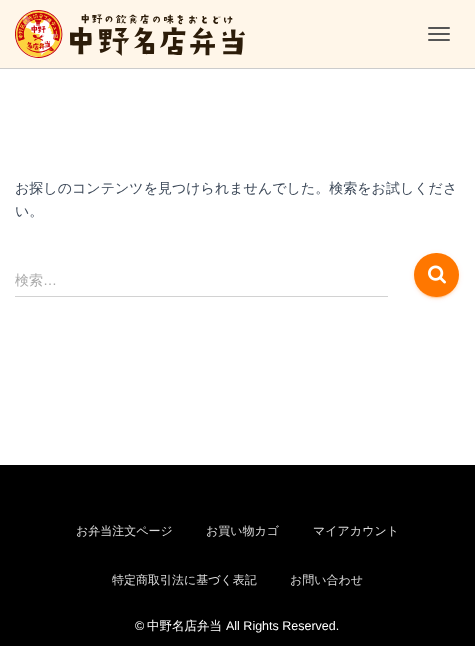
<?xml version="1.0" encoding="UTF-8"?>
<svg xmlns="http://www.w3.org/2000/svg" width="475" height="646">
    <defs>
        <filter id="blur1" x="-50%" y="-200%" width="200%" height="500%"><feGaussianBlur stdDeviation="2.5"/></filter>
        <filter id="blur2" x="-50%" y="-200%" width="200%" height="500%"><feGaussianBlur stdDeviation="0.5"/></filter>
        <filter id="blur3" x="-50%" y="-200%" width="200%" height="500%"><feGaussianBlur stdDeviation="1"/></filter>
    </defs>
    <rect width="100%" height="100%" fill="#FFFFFF"/>
    <rect x="0" y="0" width="475" height="68" fill="#FFF6E9"/>
    <rect x="0" y="68" width="475" height="1" fill="#CCCCCC"/>
    <image x="15" y="10" width="230" height="48" href="img_01.png"/>
    <rect x="428" y="27" width="22" height="2" rx="1" fill="#555555"/>
    <rect x="428" y="33" width="22" height="2" rx="1" fill="#555555"/>
    <rect x="428" y="39" width="22" height="2" rx="1" fill="#555555"/>
    <text font-family="WenQuanYi Zen Hei" font-size="14" font-weight="500" fill="#3C4858">
        <tspan x="15" y="193">お探しのコンテンツを見つけられませんでした。検索をお試しくださ</tspan>
        <tspan x="15" y="216">い。</tspan>
    </text>
    <text x="15" y="285" font-family="WenQuanYi Zen Hei" font-size="14" font-weight="500" fill="#AAAAAA">検索</text>
    <text x="43" y="285" font-family="Liberation Sans" font-size="14" fill="#AAAAAA">…</text>
    <rect x="15" y="296" width="373" height="1" fill="#D2D2D2"/>
    <rect x="414" y="254" width="45" height="44" rx="22" fill="#FF7700" fill-opacity="0.12" filter="url(#blur1)"/>
    <rect x="416" y="258" width="41" height="40" rx="20" fill="#FF7700" fill-opacity="0.2" filter="url(#blur2)"/>
    <rect x="414" y="255" width="45" height="44" rx="22" fill="#FF7700" fill-opacity="0.14" filter="url(#blur3)"/>
    <rect x="414" y="253" width="45" height="44" rx="22" fill="#FF7700"/>
    <image x="428" y="265" width="18" height="19" href="img_02.png"/>
    <rect x="0" y="465" width="475" height="181" fill="#000000"/>
    <text x="76" y="535" font-family="WenQuanYi Zen Hei" font-size="12" font-weight="500" fill="#DBDBDB">お弁当注文ページ</text>
    <text x="206" y="535" font-family="WenQuanYi Zen Hei" font-size="12" font-weight="500" fill="#DBDBDB">お買い物カゴ</text>
    <text x="313" y="535" font-family="WenQuanYi Zen Hei" font-size="12" font-weight="500" fill="#DBDBDB">マイアカウント</text>
    <text x="112" y="584" font-family="WenQuanYi Zen Hei" font-size="12" font-weight="500" fill="#DBDBDB">特定商取引法に基づく表記</text>
    <text x="290" y="584" font-family="WenQuanYi Zen Hei" font-size="12" font-weight="500" fill="#DBDBDB">お問い合わせ</text>
    <text x="135" y="630" font-family="Liberation Sans" font-size="12.5" fill="#FFFFFF">©</text>
    <text x="147" y="630" font-family="WenQuanYi Zen Hei" font-size="12.5" font-weight="500" fill="#FFFFFF">中野名店弁当</text>
    <text x="226" y="630" font-family="Liberation Sans" font-size="12.5" fill="#FFFFFF">All Rights Reserved.</text>
</svg>
